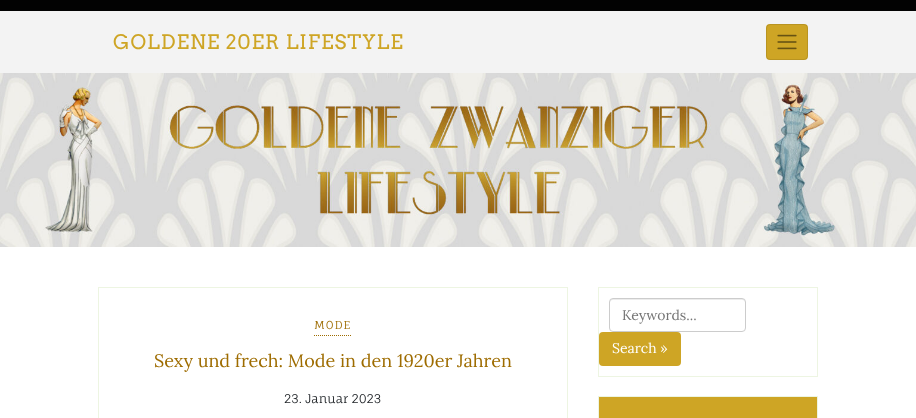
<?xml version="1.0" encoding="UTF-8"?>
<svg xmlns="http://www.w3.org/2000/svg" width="916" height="418">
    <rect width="100%" height="100%" fill="#FFFFFF"/>
    <rect x="0" y="0" width="916" height="11" fill="#020202"/>
    <rect x="0" y="11" width="916" height="62" fill="#F3F3F3"/>
    <text x="113" y="49" font-family="Arvo" font-size="20" letter-spacing="1" fill="#CEA525">GOLDENE 20ER LIFESTYLE</text>
    <rect x="766" y="24" width="42" height="36" rx="4" fill="#CEA525"/>
    <rect x="766.5" y="24.5" width="41" height="35" rx="3.5" fill="none" stroke="#000000" stroke-opacity="0.1"/>
    <image x="777" y="34" width="20" height="16" href="img_01.png"/>
    <image x="0" y="73" width="916" height="174" href="img_02.png"/>
    <rect x="98.5" y="287.5" width="469" height="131" fill="none" stroke="#EDF5E2"/>
    <text x="314" y="329" font-family="Fauna One" font-size="11" letter-spacing="1" fill="#9E6C00">MODE</text>
    <path d="M 314 335.5 H 352" fill="none" stroke="#9E6C00" stroke-dasharray="1 1"/>
    <text x="154" y="367" font-family="Lora" font-size="18" fill="#9E6C00">Sexy und frech: Mode in den 1920er Jahren</text>
    <text x="284" y="403" font-family="Fauna One" font-size="12" fill="#212529">23. Januar 2023</text>
    <rect x="598.5" y="287.5" width="219" height="89" fill="none" stroke="#EDF5E2"/>
    <path d="M 613 300 H 742 C 744 300 745 301 745 303 C 745 301 745 299 743 299 H 612 C 610 299 610 301 610 303 C 610 301 611 300 613 300 Z" fill="#ECECEC"/>
    <rect x="609.5" y="298.5" width="136" height="33" rx="3.5" fill="none" stroke="#CCCCCC"/>
    <text x="622" y="320" font-family="Lora" font-size="14" fill="#757575">Keywords...</text>
    <rect x="599" y="332" width="82" height="34" rx="4" fill="#CEA525"/>
    <text x="612" y="353" font-family="Lora" font-size="14" fill="#FFFFFF">Search »</text>
    <rect x="598.5" y="396.5" width="219" height="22" fill="none" stroke="#EDF5E2"/>
    <rect x="599" y="397" width="218" height="21" fill="#CEA525"/>
</svg>
